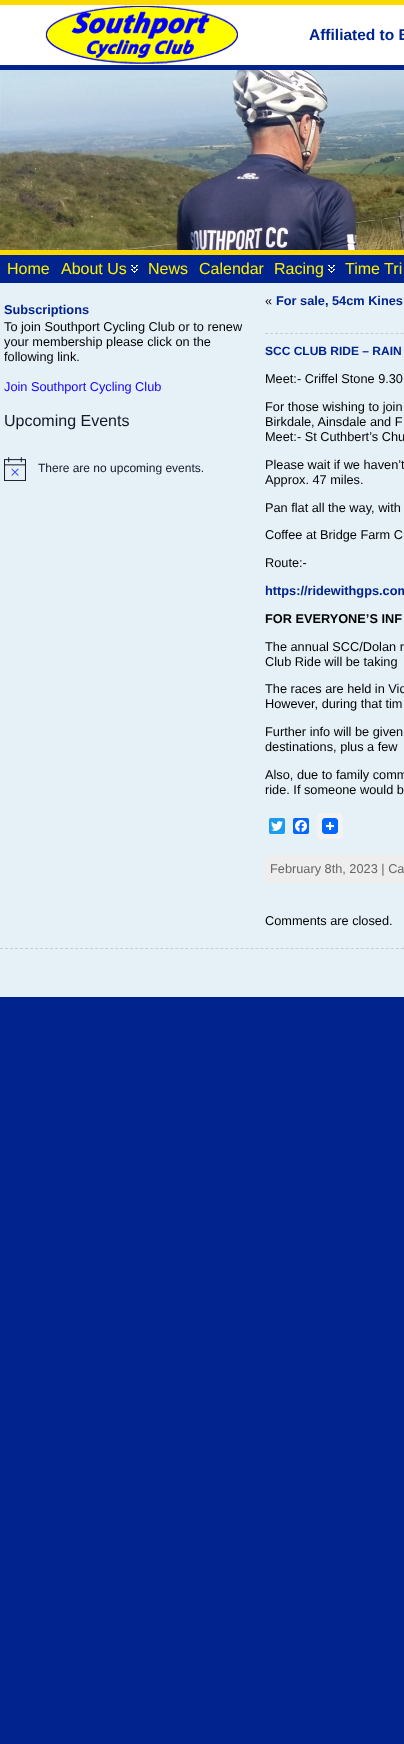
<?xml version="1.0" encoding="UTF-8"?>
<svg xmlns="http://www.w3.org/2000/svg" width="404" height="1744">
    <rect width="100%" height="100%" fill="#00238E"/>
    <rect x="0" y="0" width="404" height="5" fill="#FCDA00"/>
    <rect x="0" y="5" width="404" height="60" fill="#FFFFFF"/>
    <image x="45" y="5" width="193" height="59" href="img_01.png"/>
    <text x="309" y="40" font-family="Liberation Sans" font-size="15.5" font-weight="700" fill="#00238E">Affiliated to B</text>
    <image x="0" y="70" width="404" height="180" href="img_02.png"/>
    <rect x="0" y="250" width="404" height="5" fill="#FCDA00"/>
    <text x="7" y="274" font-family="Liberation Sans" font-size="16" fill="#FDEF00">Home</text>
    <image x="131" y="265" width="7" height="8" href="img_03.png"/>
    <text x="61" y="274" font-family="Liberation Sans" font-size="16" fill="#FDEF00">About Us</text>
    <text x="148" y="274" font-family="Liberation Sans" font-size="16" fill="#FDEF00">News</text>
    <text x="199" y="274" font-family="Liberation Sans" font-size="16" fill="#FDEF00">Calendar</text>
    <image x="328" y="265" width="7" height="8" href="img_03.png"/>
    <text x="274" y="274" font-family="Liberation Sans" font-size="16" fill="#FDEF00">Racing</text>
    <text x="345" y="274" font-family="Liberation Sans" font-size="16" fill="#FDEF00">Time Tri</text>
    <rect x="0" y="283" width="404" height="714" fill="#E5F0F7"/>
    <text x="4" y="314" font-family="Liberation Sans" font-size="12.75" font-weight="700" fill="#00238E">Subscriptions</text>
    <text font-family="Liberation Sans" font-size="12.75" fill="#000000">
        <tspan x="4" y="331">To join Southport Cycling Club or to renew</tspan>
        <tspan x="4" y="346">your membership please click on the</tspan>
        <tspan x="4" y="361">following link.</tspan>
    </text>
    <text x="4" y="391" font-family="Liberation Sans" font-size="12.75" fill="#1100FB">Join Southport Cycling Club</text>
    <text x="4" y="426" font-family="Liberation Sans" font-size="16" fill="#141827">Upcoming Events</text>
    <image x="4" y="457" width="22" height="24" href="img_04.png"/>
    <text x="38" y="472" font-family="Liberation Sans" font-size="12" fill="#141827">There are no upcoming events.</text>
    <path d="M 265 333.5 H 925" fill="none" stroke="#CCCCCC" stroke-dasharray="3 2.02"/>
    <text x="265" y="305" font-family="Liberation Sans" font-size="12.75" fill="#000000">«</text>
    <text x="276" y="305" font-family="Liberation Sans" font-size="12.75" font-weight="700" fill="#00238E">For sale, 54cm Kines</text>
    <text x="265" y="355" font-family="Liberation Sans" font-size="12" font-weight="700" fill="#00238E">SCC CLUB RIDE – RAIN</text>
    <text x="265" y="383" font-family="Liberation Sans" font-size="12.75" fill="#000000">Meet:- Criffel Stone 9.30</text>
    <text font-family="Liberation Sans" font-size="12.75" fill="#000000">
        <tspan x="265" y="411">For those wishing to join</tspan>
        <tspan x="265" y="426">Birkdale, Ainsdale and F</tspan>
        <tspan x="265" y="441">Meet:- St Cuthbert’s Chu</tspan>
    </text>
    <text font-family="Liberation Sans" font-size="12.75" fill="#000000">
        <tspan x="265" y="469">Please wait if we haven’t</tspan>
        <tspan x="265" y="484">Approx. 47 miles.</tspan>
    </text>
    <text x="265" y="512" font-family="Liberation Sans" font-size="12.75" fill="#000000">Pan flat all the way, with</text>
    <text x="265" y="539" font-family="Liberation Sans" font-size="12.75" fill="#000000">Coffee at Bridge Farm C</text>
    <text x="265" y="567" font-family="Liberation Sans" font-size="12.75" fill="#000000">Route:-</text>
    <text x="265" y="595" font-family="Liberation Sans" font-size="12.75" font-weight="700" fill="#00238E">https://ridewithgps.com</text>
    <text x="265" y="623" font-family="Liberation Sans" font-size="12.75" font-weight="700" fill="#000000">FOR EVERYONE’S INF</text>
    <text font-family="Liberation Sans" font-size="12.75" fill="#000000">
        <tspan x="265" y="651">The annual SCC/Dolan r</tspan>
        <tspan x="265" y="666">Club Ride will be taking</tspan>
    </text>
    <text font-family="Liberation Sans" font-size="12.75" fill="#000000">
        <tspan x="265" y="693">The races are held in Vic</tspan>
        <tspan x="265" y="708">However, during that tim</tspan>
    </text>
    <text font-family="Liberation Sans" font-size="12.75" fill="#000000">
        <tspan x="265" y="736">Further info will be given</tspan>
        <tspan x="265" y="751">destinations, plus a few</tspan>
    </text>
    <text font-family="Liberation Sans" font-size="12.75" fill="#000000">
        <tspan x="265" y="779">Also, due to family comm</tspan>
        <tspan x="265" y="794">ride. If someone would b</tspan>
    </text>
    <rect x="269" y="818" width="16" height="16" rx="2" fill="#1D9BF0"/>
    <image x="271" y="821" width="12" height="10" href="img_05.png"/>
    <rect x="293" y="818" width="16" height="16" rx="2" fill="#0866FF"/>
    <image x="295" y="820" width="12" height="12" href="img_06.png"/>
    <rect x="317" y="813" width="26" height="26" rx="3" fill="#F3F3F3"/>
    <image x="322" y="818" width="16" height="16" href="img_07.png"/>
    <rect x="265" y="855" width="139" height="28" fill="#EEEEEE"/>
    <text x="270" y="873" font-family="Liberation Sans" font-size="12.75" fill="#666666">February 8th, 2023 | Ca</text>
    <text x="265" y="925" font-family="Liberation Sans" font-size="12.75" fill="#000000">Comments are closed.</text>
    <path d="M 0 948.5 H 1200" fill="none" stroke="#CCCCCC" stroke-dasharray="3 2.01"/>
</svg>
